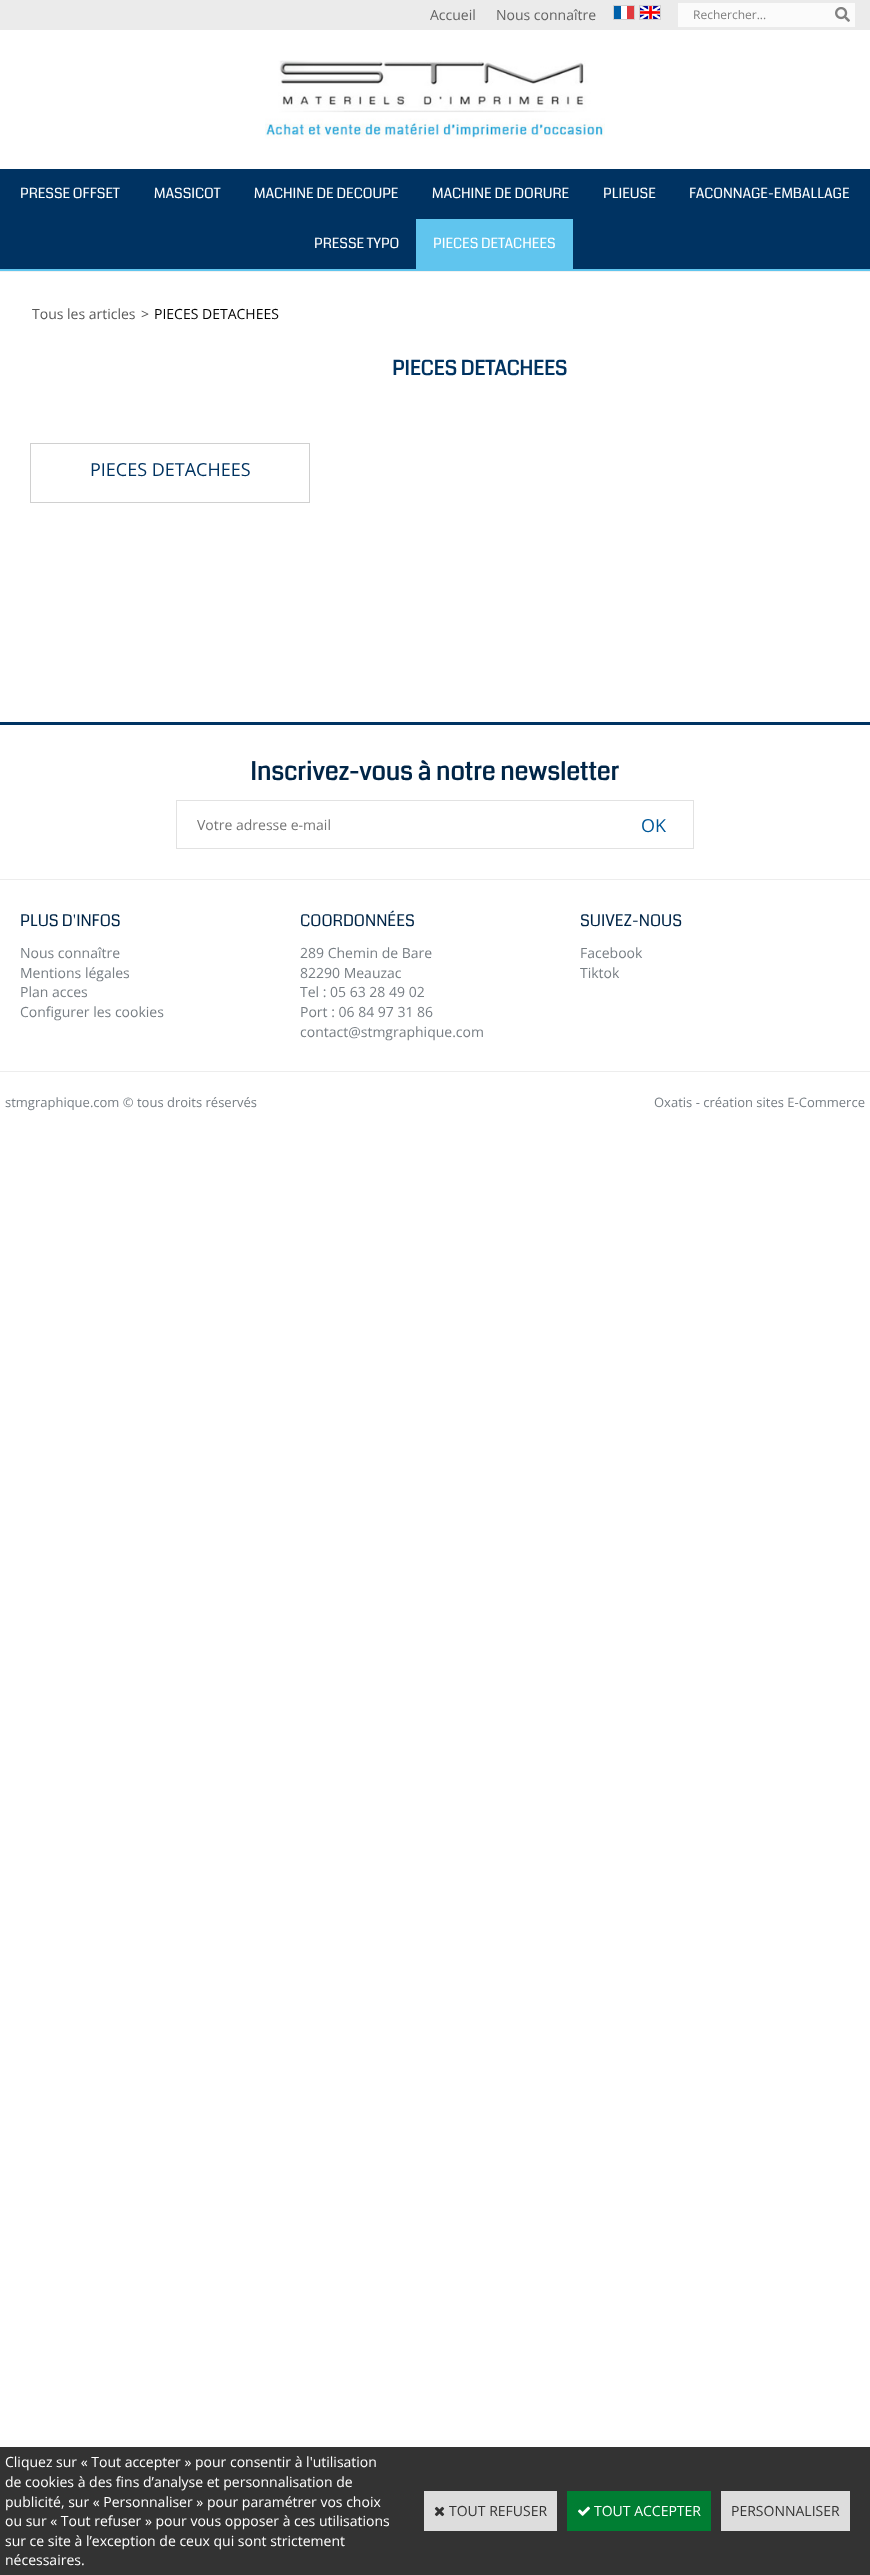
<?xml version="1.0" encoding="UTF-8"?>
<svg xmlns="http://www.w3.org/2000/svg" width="870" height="2575">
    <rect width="100%" height="100%" fill="#FFFFFF"/>
    <rect x="0" y="271" width="870" height="1" fill="#F1F1F1"/>
    <rect x="0" y="0" width="870" height="30" fill="#EBEBEB"/>
    <text x="430" y="20" font-family="Open Sans" font-size="14" fill="#636363">Accueil</text>
    <text x="496" y="20" font-family="Open Sans" font-size="14" fill="#636363">Nous connaître</text>
    <image x="614" y="6" width="20" height="13" href="img_01.png"/>
    <rect x="613.5" y="5.5" width="21" height="14" fill="none" stroke="#D0D0D0"/>
    <image x="640" y="6" width="20" height="13" href="img_02.png"/>
    <rect x="639.5" y="5.5" width="21" height="14" fill="none" stroke="#D0D0D0"/>
    <rect x="678" y="3" width="177" height="24" fill="#FBFBFB"/>
    <text x="693" y="19" font-family="Open Sans" font-size="12" fill="#7E7E7E">Rechercher...</text>
    <image x="835" y="7" width="15" height="15" href="img_03.png"/>
    <image x="265" y="60" width="340" height="79" href="img_04.png"/>
    <rect x="0" y="169" width="870" height="100" fill="#003362"/>
    <rect x="0" y="269" width="870" height="2" fill="#60C5EE"/>
    <text x="20" y="198" font-family="Coda" font-size="14" fill="#FFFFFF">PRESSE OFFSET</text>
    <text x="154" y="198" font-family="Coda" font-size="14" fill="#FFFFFF">MASSICOT</text>
    <text x="254" y="198" font-family="Coda" font-size="14" fill="#FFFFFF">MACHINE DE DECOUPE</text>
    <text x="432" y="198" font-family="Coda" font-size="14" fill="#FFFFFF">MACHINE DE DORURE</text>
    <text x="603" y="198" font-family="Coda" font-size="14" fill="#FFFFFF">PLIEUSE</text>
    <text x="689" y="198" font-family="Coda" font-size="14" fill="#FFFFFF">FACONNAGE-EMBALLAGE</text>
    <text x="314" y="248" font-family="Coda" font-size="14" fill="#FFFFFF">PRESSE TYPO</text>
    <rect x="416" y="219" width="157" height="50" fill="#60C5EE"/>
    <text x="433" y="248" font-family="Coda" font-size="14" fill="#FFFFFF">PIECES DETACHEES</text>
    <text x="32" y="319" font-family="Open Sans" font-size="14" fill="#585858">Tous les articles</text>
    <text x="141" y="319" font-family="Open Sans" font-size="14" fill="#585858">&gt;</text>
    <text x="154" y="319" font-family="Open Sans" font-size="14" fill="#000000">PIECES DETACHEES</text>
    <text x="392" y="375" font-family="Coda" font-size="20" font-weight="700" fill="#003361">PIECES DETACHEES</text>
    <rect x="30.5" y="443.5" width="279" height="59" fill="none" stroke="#D0D0D0"/>
    <text x="90" y="476" font-family="Open Sans" font-size="18" fill="#003361">PIECES DETACHEES</text>
    <rect x="0" y="722" width="870" height="3" fill="#003362"/>
    <rect x="0" y="879" width="870" height="1" fill="#EDEDED"/>
    <text x="250" y="780" font-family="Coda" font-size="25" font-weight="700" fill="#002547">Inscrivez-vous à notre newsletter</text>
    <rect x="176" y="800" width="518" height="1" fill="#E2E2E2"/>
    <rect x="176" y="848" width="440" height="1" fill="#E2E2E2"/>
    <rect x="176" y="800" width="1" height="49" fill="#E2E2E2"/>
    <text x="197" y="830" font-family="Open Sans" font-size="14" fill="#757575">Votre adresse e-mail</text>
    <rect x="693" y="800" width="1" height="49" fill="#E2E2E2"/>
    <rect x="614" y="848" width="80" height="1" fill="#E2E2E2"/>
    <text x="641" y="832" font-family="Open Sans" font-size="18" fill="#005899">OK</text>
    <text x="20" y="926" font-family="Coda" font-size="16" fill="#002547">PLUS D'INFOS</text>
    <text font-family="Open Sans" font-size="14" fill="#777E84">
        <tspan x="20" y="958">Nous connaître</tspan>
        <tspan x="20" y="978">Mentions légales</tspan>
        <tspan x="20" y="997">Plan acces</tspan>
        <tspan x="20" y="1017">Configurer les cookies</tspan>
    </text>
    <text x="300" y="926" font-family="Coda" font-size="16" fill="#002547">COORDONNÉES</text>
    <text font-family="Open Sans" font-size="14" fill="#777E84">
        <tspan x="300" y="958">289 Chemin de Bare</tspan>
        <tspan x="300" y="978">82290 Meauzac</tspan>
        <tspan x="300" y="997">Tel : 05 63 28 49 02</tspan>
        <tspan x="300" y="1017">Port : 06 84 97 31 86</tspan>
        <tspan x="300" y="1037">contact@stmgraphique.com</tspan>
    </text>
    <text x="580" y="926" font-family="Coda" font-size="16" fill="#002547">SUIVEZ-NOUS</text>
    <text font-family="Open Sans" font-size="14" fill="#777E84">
        <tspan x="580" y="958">Facebook</tspan>
        <tspan x="580" y="978">Tiktok</tspan>
    </text>
    <rect x="0" y="1071" width="870" height="1" fill="#EDEDED"/>
    <text x="5" y="1107" font-family="Open Sans" font-size="13" fill="#777E84">stmgraphique.com © tous droits réservés</text>
    <text x="654" y="1107" font-family="Open Sans" font-size="13" fill="#777E84">Oxatis - création sites E-Commerce</text>
    <rect x="0" y="2447" width="870" height="128" fill="#333333"/>
    <text font-family="Open Sans" font-size="14" fill="#FFFFFF">
        <tspan x="5" y="2467">Cliquez sur « Tout accepter » pour consentir à l'utilisation</tspan>
        <tspan x="5" y="2487">de cookies à des fins d’analyse et personnalisation de</tspan>
        <tspan x="5" y="2507">publicité, sur « Personnaliser » pour paramétrer vos choix</tspan>
        <tspan x="5" y="2526">ou sur « Tout refuser » pour vous opposer à ces utilisations</tspan>
        <tspan x="5" y="2546">sur ce site à l’exception de ceux qui sont strictement</tspan>
        <tspan x="5" y="2565">nécessaires.</tspan>
    </text>
    <rect x="424" y="2491" width="133" height="40" fill="#DDDDDD"/>
    <image x="434" y="2506" width="11" height="11" href="img_05.png"/>
    <text x="449" y="2516" font-family="Open Sans" font-size="14" fill="#333333">TOUT REFUSER</text>
    <rect x="567" y="2491" width="144" height="40" fill="#007E33"/>
    <image x="578" y="2506" width="12" height="10" href="img_06.png"/>
    <text x="594" y="2516" font-family="Open Sans" font-size="14" fill="#FFFFFF">TOUT ACCEPTER</text>
    <rect x="721" y="2491" width="129" height="40" fill="#DDDDDD"/>
    <text x="731" y="2516" font-family="Open Sans" font-size="14" fill="#333333">PERSONNALISER</text>
</svg>
